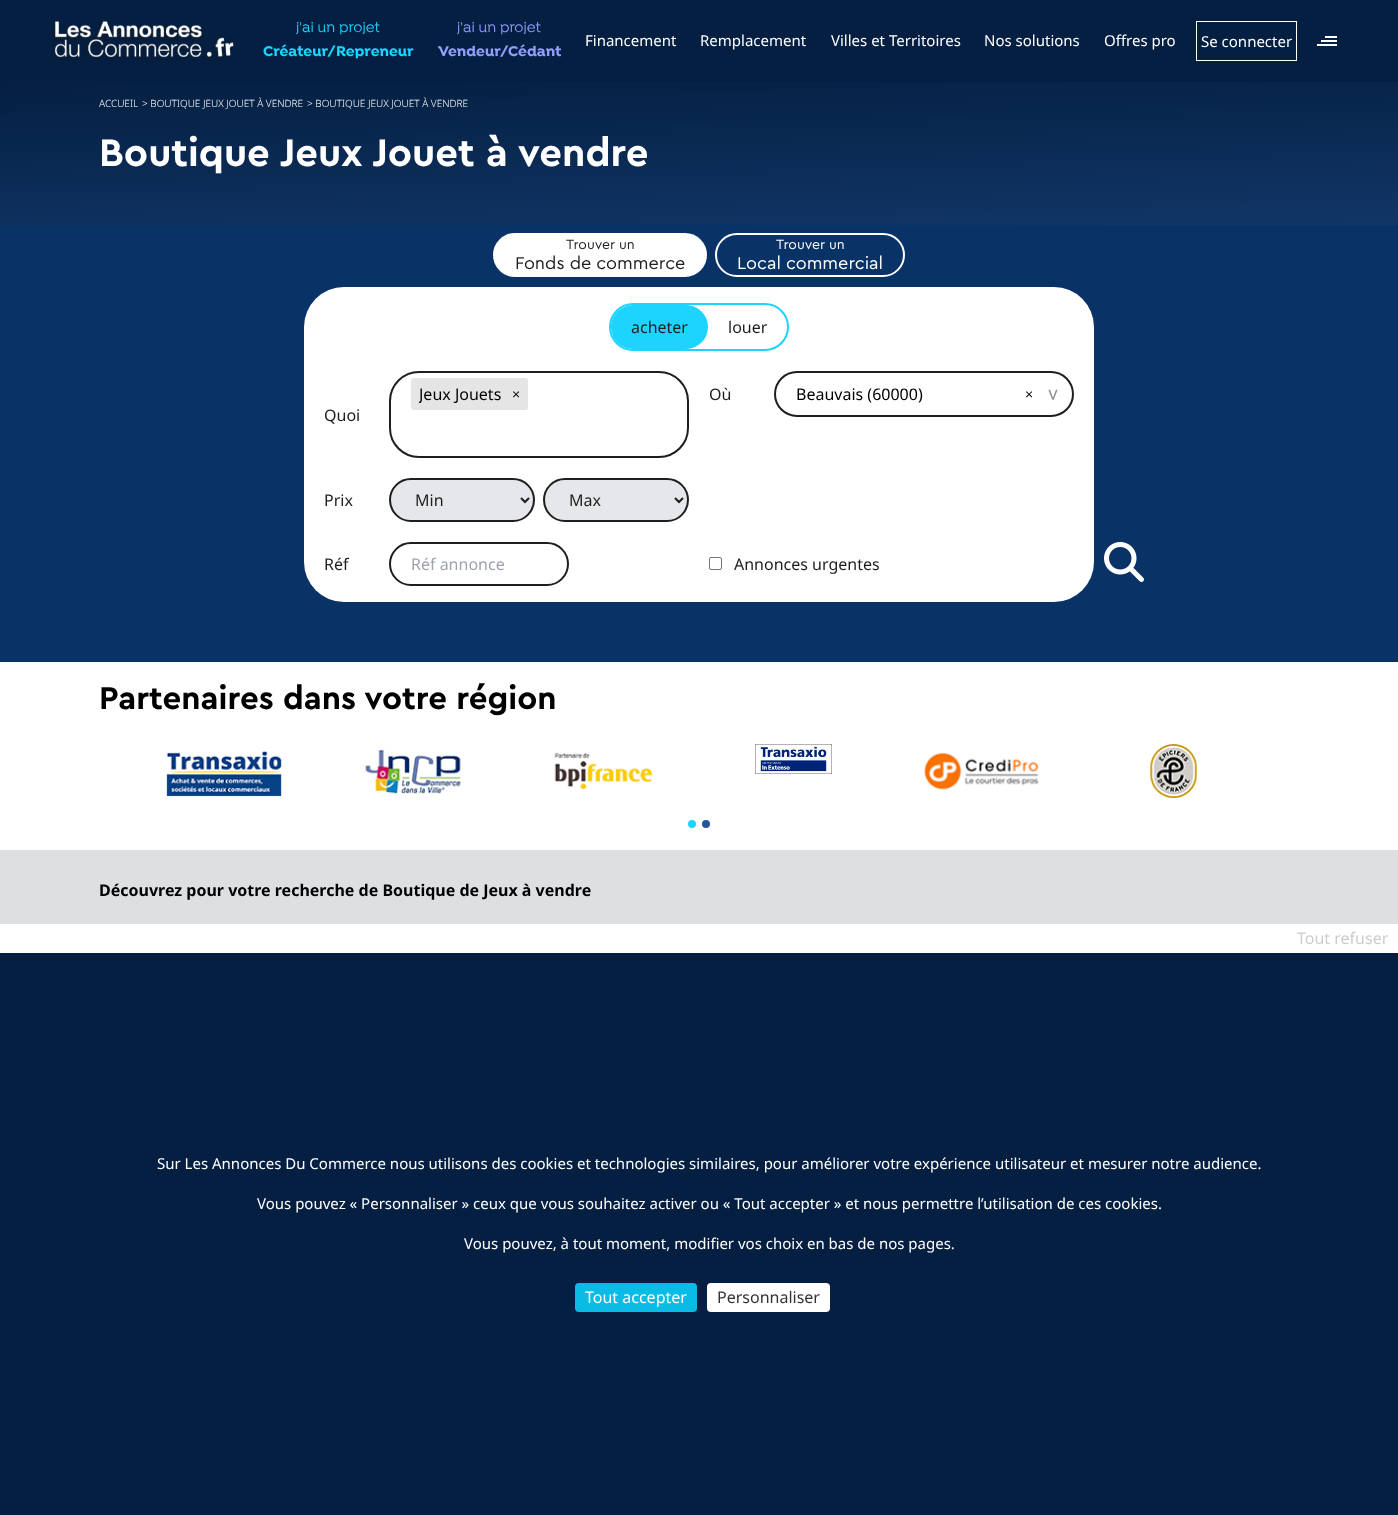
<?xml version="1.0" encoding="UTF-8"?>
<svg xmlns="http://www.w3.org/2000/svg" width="1398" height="1515">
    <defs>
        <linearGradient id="g1" gradientUnits="userSpaceOnUse" x1="702" y1="249" x2="696" y2="58"><stop offset="0" stop-color="#113667"/><stop offset="1" stop-color="#041F41"/></linearGradient>
        <clipPath id="clip1"><rect x="419" y="383" width="82" height="22"/></clipPath>
    </defs>
    <rect width="100%" height="100%" fill="#FFFFFF"/>
    <rect x="0" y="0" width="1398" height="82" fill="#041F41"/>
    <image x="52" y="21" width="182" height="39" href="img_01.png"/>
    <text x="296" y="32" font-family="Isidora" font-size="15" font-weight="500" fill="#1CD4FF">j'ai un projet</text>
    <text x="263" y="56" font-family="Isidora" font-size="15" font-weight="700" fill="#1CD4FF">Créateur/Repreneur</text>
    <text x="457" y="32" font-family="Isidora" font-size="15" font-weight="500" fill="#929EFF">j'ai un projet</text>
    <text x="438" y="56" font-family="Isidora" font-size="15" font-weight="700" fill="#929EFF">Vendeur/Cédant</text>
    <text x="585" y="46" font-family="Noto Sans" font-size="15" fill="#FFFFFF">Financement</text>
    <text x="700" y="46" font-family="Noto Sans" font-size="15" fill="#FFFFFF">Remplacement</text>
    <text x="831" y="46" font-family="Noto Sans" font-size="15" fill="#FFFFFF">Villes et Territoires</text>
    <text x="984" y="46" font-family="Noto Sans" font-size="15" fill="#FFFFFF">Nos solutions</text>
    <text x="1104" y="46" font-family="Noto Sans" font-size="15" fill="#FFFFFF">Offres pro</text>
    <rect x="1196.5" y="21.5" width="100" height="39" fill="none" stroke="#FFFFFF"/>
    <text x="1201" y="47" font-family="Noto Sans" font-size="15" fill="#FFFFFF">Se connecter</text>
    <rect x="1325" y="36" width="12" height="2" fill="#FFFFFF"/>
    <rect x="1321" y="40" width="16" height="2" fill="#FFFFFF"/>
    <rect x="1317" y="44" width="20" height="2" fill="#FFFFFF"/>
    <rect x="0" y="82" width="1398" height="143" fill="url(#g1)"/>
    <text x="99" y="107" font-family="Noto Sans" font-size="10" font-weight="300" fill="#FFFFFF">ACCUEIL</text>
    <text x="142" y="107" font-family="Noto Sans" font-size="10" font-weight="300" fill="#FFFFFF">&gt; BOUTIQUE JEUX JOUET À VENDRE</text>
    <text x="307" y="107" font-family="Noto Sans" font-size="10" font-weight="300" fill="#FFFFFF">&gt; BOUTIQUE JEUX JOUET À VENDRE</text>
    <text x="99" y="166" font-family="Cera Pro" font-size="40" font-weight="700" fill="#FFFFFF">Boutique Jeux Jouet à vendre</text>
    <rect x="0" y="225" width="1398" height="437" fill="#093267"/>
    <rect x="494" y="234" width="212" height="42" rx="21" fill="#FFFFFF" stroke="#FFFFFF" stroke-width="2"/>
    <text x="566" y="249" font-family="Cera Pro" font-size="14" fill="#1F1E1E">Trouver un</text>
    <text x="515" y="269" font-family="Cera Pro" font-size="18" fill="#1F1E1E">Fonds de commerce</text>
    <rect x="716" y="234" width="188" height="42" rx="21" fill="none" stroke="#FFFFFF" stroke-width="2"/>
    <text x="776" y="249" font-family="Cera Pro" font-size="14" fill="#FFFFFF">Trouver un</text>
    <text x="737" y="269" font-family="Cera Pro" font-size="18" fill="#FFFFFF">Local commercial</text>
    <rect x="304" y="287" width="790" height="315" rx="40" fill="#FFFFFF"/>
    <rect x="610" y="304" width="178" height="46" rx="23" fill="none" stroke="#1CD4FF" stroke-width="2"/>
    <rect x="611" y="305" width="97" height="44" rx="22" fill="#1CD4FF"/>
    <text x="631" y="333" font-family="Noto Sans" font-size="16" fill="#1F1E1E">acheter</text>
    <text x="728" y="333" font-family="Noto Sans" font-size="16" fill="#1F1E1E">louer</text>
    <rect x="390" y="372" width="298" height="85" rx="29" fill="none" stroke="#1F1E1E" stroke-width="2"/>
    <rect x="411" y="378" width="117" height="32" rx="3" fill="#E5E5E5"/>
    <g clip-path="url(#clip1)">
        <text x="419" y="400" font-family="Noto Sans" font-size="16" fill="#000000">Jeux Jouets</text>
    </g>
    <text x="512" y="399" font-family="Liberation Sans" font-size="14" fill="#000000">×</text>
    <text x="324" y="421" font-family="Noto Sans" font-size="16" fill="#1F1E1E">Quoi</text>
    <text x="709" y="400" font-family="Noto Sans" font-size="16" fill="#1F1E1E">Où</text>
    <rect x="775" y="372" width="298" height="44" rx="22" fill="none" stroke="#1F1E1E" stroke-width="2"/>
    <text x="796" y="400" font-family="Noto Sans" font-size="16" fill="#000000">Beauvais (60000)</text>
    <text x="1025" y="399" font-family="Liberation Sans" font-size="14" fill="#000000">×</text>
    <text x="1047" y="389" transform="rotate(90 1047 389)" font-family="DejaVu Sans Mono" font-size="19" letter-spacing="-2" fill="#8F8F8F">&gt;</text>
    <text x="324" y="506" font-family="Noto Sans" font-size="16" fill="#1F1E1E">Prix</text>
    <rect x="390" y="479" width="144" height="42" rx="21" fill="#E5E7EB" stroke="#1F1E1E" stroke-width="2"/>
    <path d="M 521 498 L 525 502 L 529 498" fill="none" stroke="#1F1E1E" stroke-width="2"/>
    <text x="415" y="506" font-family="Noto Sans" font-size="16" fill="#1F1E1E">Min</text>
    <rect x="544" y="479" width="144" height="42" rx="21" fill="#E5E7EB" stroke="#1F1E1E" stroke-width="2"/>
    <path d="M 675 498 L 679 502 L 683 498" fill="none" stroke="#1F1E1E" stroke-width="2"/>
    <text x="569" y="506" font-family="Noto Sans" font-size="16" fill="#1F1E1E">Max</text>
    <text x="324" y="570" font-family="Noto Sans" font-size="16" fill="#1F1E1E">Réf</text>
    <rect x="390" y="543" width="178" height="42" rx="21" fill="none" stroke="#1F1E1E" stroke-width="2"/>
    <text x="411" y="570" font-family="Noto Sans" font-size="16" fill="#9CA3AF">Réf annonce</text>
    <rect x="709.5" y="557.5" width="12" height="12" rx="1.5" fill="none" stroke="#767676"/>
    <text x="734" y="570" font-family="Noto Sans" font-size="16" fill="#1F1E1E">Annonces urgentes</text>
    <image x="1104" y="542" width="40" height="40" href="img_02.png"/>
    <text x="99" y="709" font-family="Cera Pro" font-size="33" font-weight="700" fill="#000000">Partenaires dans votre région</text>
    <image x="166" y="751" width="116" height="46" href="img_03.png"/>
    <image x="365" y="749" width="97" height="45" href="img_04.png"/>
    <image x="554" y="752" width="99" height="38" href="img_05.png"/>
    <image x="755" y="744" width="77" height="30" href="img_06.png"/>
    <image x="924" y="752" width="115" height="38" href="img_07.png"/>
    <image x="1150" y="744" width="47" height="54" href="img_08.png"/>
    <circle cx="692" cy="824" r="4" fill="#1CD4FF"/>
    <circle cx="706" cy="824" r="4" fill="#25579F"/>
    <rect x="0" y="850" width="1398" height="74" fill="#DDDFE0"/>
    <text x="99" y="896" font-family="Noto Sans" font-size="16" font-weight="700" fill="#000000">Découvrez pour votre recherche de Boutique de Jeux à vendre</text>
    <rect x="0" y="953" width="1398" height="562" fill="#041F41"/>
    <text x="1297" y="944" font-family="Noto Sans" font-size="16" fill="#CCCCCC">Tout refuser</text>
    <text x="157" y="1169" font-family="Noto Sans" font-size="15" fill="#FFFFFF">Sur Les Annonces Du Commerce nous utilisons des cookies et technologies similaires, pour améliorer votre expérience utilisateur et mesurer notre audience.</text>
    <text x="257" y="1209" font-family="Noto Sans" font-size="15" fill="#FFFFFF">Vous pouvez « Personnaliser » ceux que vous souhaitez activer ou « Tout accepter » et nous permettre l’utilisation de ces cookies.</text>
    <text x="464" y="1249" font-family="Noto Sans" font-size="15" fill="#FFFFFF">Vous pouvez, à tout moment, modifier vos choix en bas de nos pages.</text>
    <rect x="575" y="1283" width="122" height="29" rx="4" fill="#09BBE5"/>
    <text x="585" y="1303" font-family="Noto Sans" font-size="16" fill="#FFFFFF">Tout accepter</text>
    <rect x="707" y="1283" width="123" height="29" rx="4" fill="#FFFFFF"/>
    <text x="717" y="1303" font-family="Noto Sans" font-size="16" fill="#333333">Personnaliser</text>
</svg>
